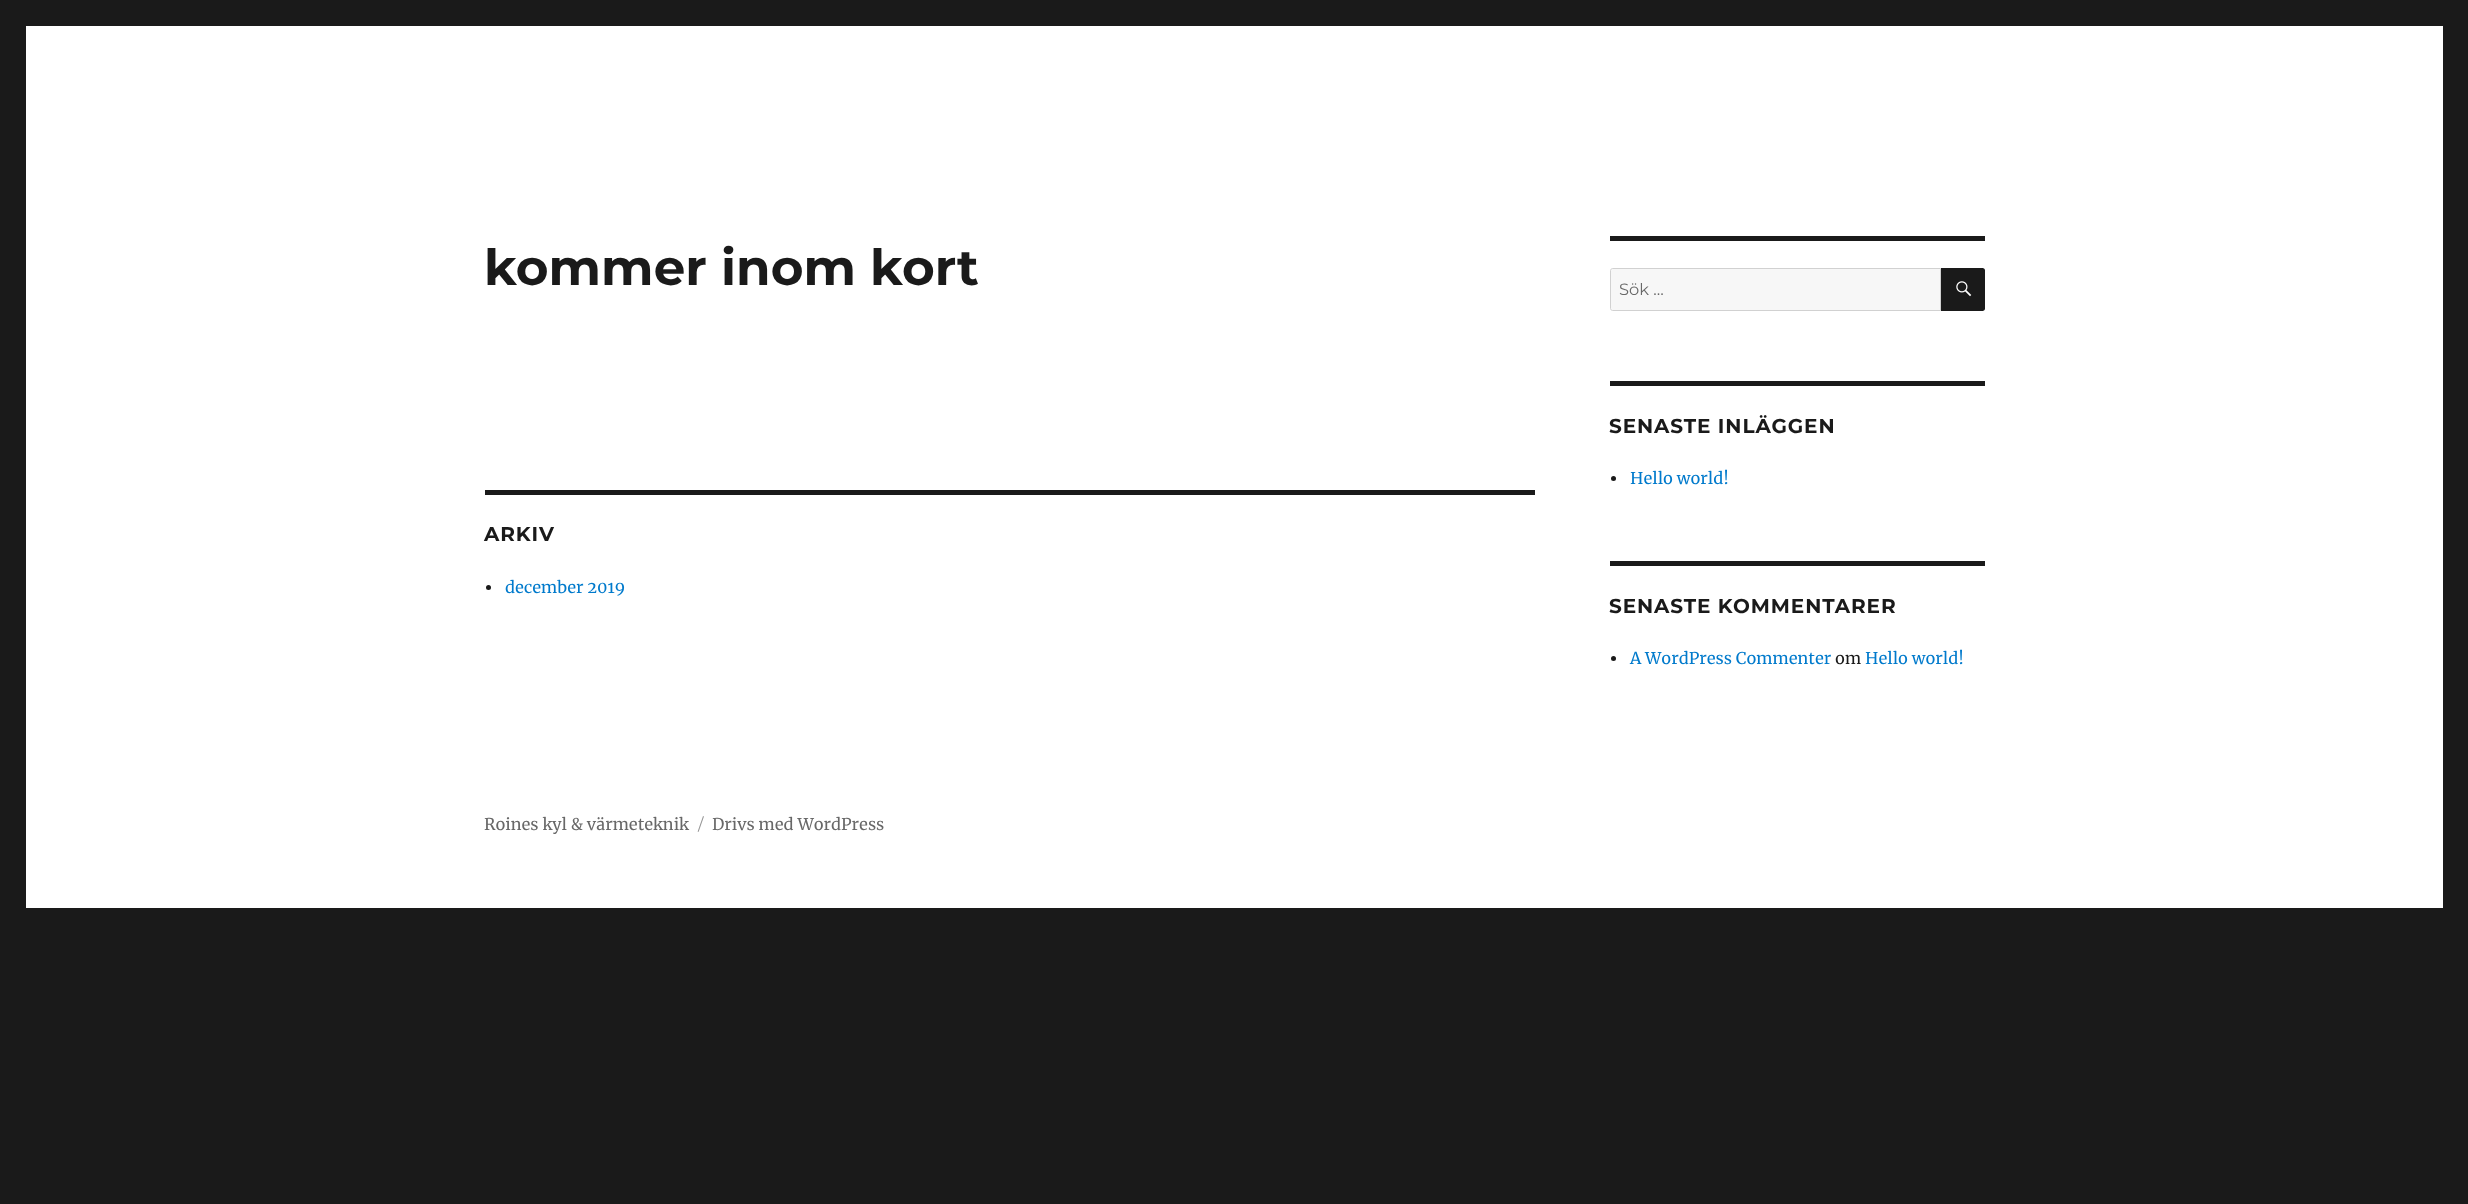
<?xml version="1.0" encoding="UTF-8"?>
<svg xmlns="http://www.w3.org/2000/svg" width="2468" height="1204">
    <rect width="100%" height="100%" fill="#1A1A1A"/>
    <rect x="26" y="26" width="2417" height="882" fill="#FFFFFF"/>
    <text x="484" y="285" font-family="Montserrat" font-size="50" font-weight="100" fill="#1A1A1A">kommer inom kort</text>
    <rect x="485" y="490" width="1050" height="5" fill="#1A1A1A"/>
    <text x="484" y="541" font-family="Montserrat" font-size="20" font-weight="100" letter-spacing="0.9" fill="#1A1A1A">ARKIV</text>
    <circle cx="488.5" cy="587.5" r="2.5" fill="#1A1A1A"/>
    <text x="505" y="593" font-family="Merriweather" font-size="16.25" fill="#007ACC">december 2019</text>
    <rect x="1610" y="236" width="375" height="5" fill="#1A1A1A"/>
    <path d="M 1612.5 268.5 H 1940.5 V 310.5 H 1612.5 C 1611.5 310.5 1610.5 309.5 1610.5 308.5 V 270.5 C 1610.5 269.5 1611.5 268.5 1612.5 268.5 Z" fill="#F7F7F7" stroke="#D1D1D1"/>
    <text x="1619" y="295" font-family="'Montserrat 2'" font-size="16.25" font-weight="100" fill="#686868">Sök …</text>
    <path d="M 1941 268 H 1982.5 C 1984 268 1985 269 1985 270.5 V 308.5 C 1985 310 1984 311 1982.5 311 H 1941 Z" fill="#1A1A1A"/>
    <image x="1956" y="281" width="16" height="16" href="img_01.png"/>
    <rect x="1610" y="381" width="375" height="5" fill="#1A1A1A"/>
    <text x="1609" y="433" font-family="Montserrat" font-size="20" font-weight="100" letter-spacing="0.9" fill="#1A1A1A">SENASTE INLÄGGEN</text>
    <circle cx="1613.5" cy="478.5" r="2.5" fill="#1A1A1A"/>
    <text x="1630" y="484" font-family="Merriweather" font-size="16.25" fill="#007ACC">Hello world!</text>
    <rect x="1610" y="561" width="375" height="5" fill="#1A1A1A"/>
    <text x="1609" y="613" font-family="Montserrat" font-size="20" font-weight="100" letter-spacing="0.9" fill="#1A1A1A">SENASTE KOMMENTARER</text>
    <circle cx="1613.5" cy="658.5" r="2.5" fill="#1A1A1A"/>
    <text x="1630" y="664" font-family="Merriweather" font-size="16.25" fill="#007ACC">A WordPress Commenter</text>
    <text x="1835" y="664" font-family="Merriweather" font-size="16.25" fill="#1A1A1A">om</text>
    <text x="1865" y="664" font-family="Merriweather" font-size="16.25" fill="#007ACC">Hello world!</text>
    <text x="484" y="830" font-family="Merriweather" font-size="16.25" fill="#686868">Roines kyl &amp; värmeteknik</text>
    <text x="698" y="830" font-family="'Montserrat 2'" font-size="16.25" font-weight="100" fill="#959595">/</text>
    <text x="712" y="830" font-family="Merriweather" font-size="16.25" fill="#686868">Drivs med WordPress</text>
</svg>
